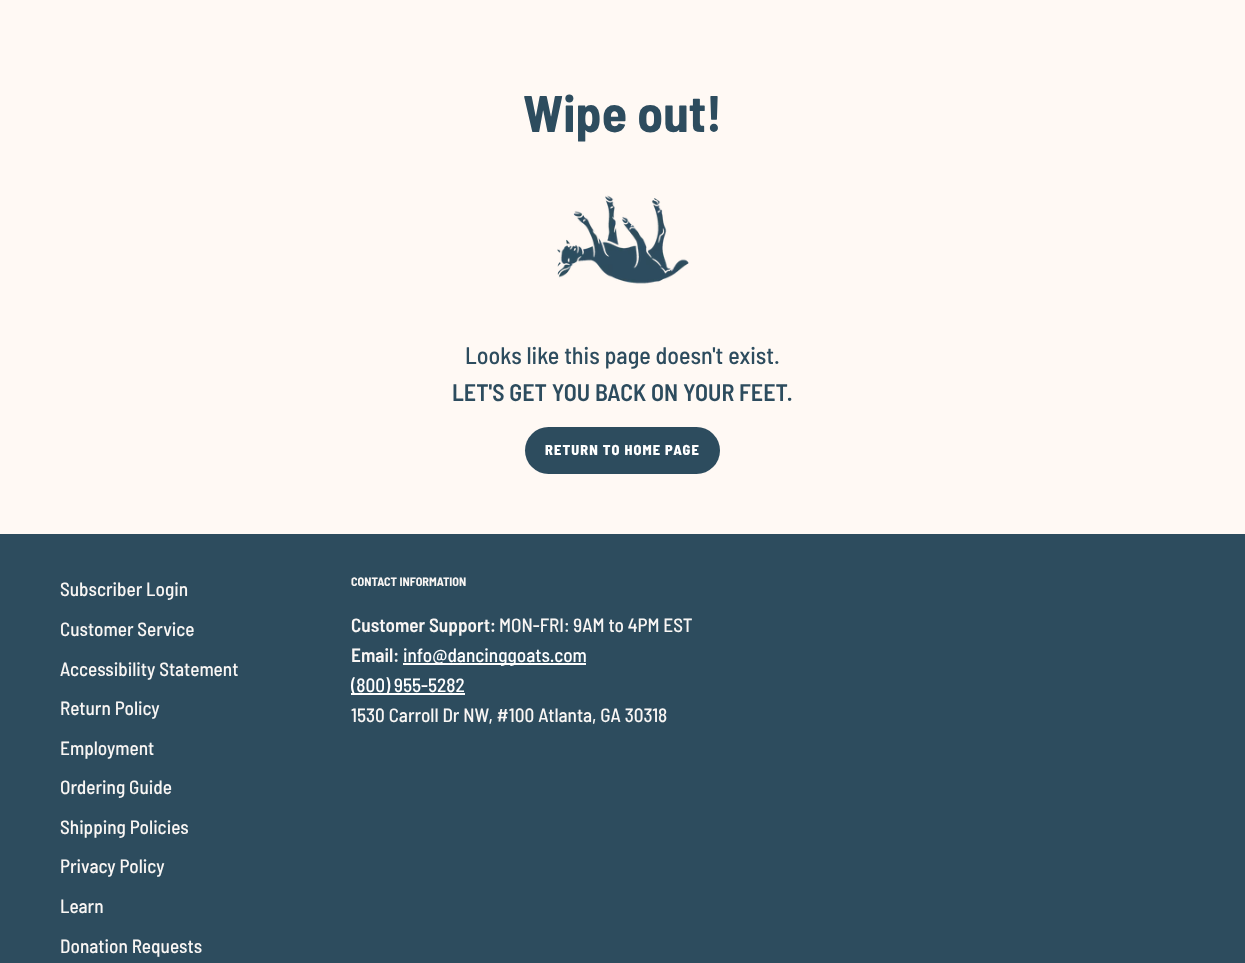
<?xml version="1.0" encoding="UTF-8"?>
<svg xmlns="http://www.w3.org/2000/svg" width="1245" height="963">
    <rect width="100%" height="100%" fill="#FFF9F4"/>
    <text x="523" y="132" font-family="Barlow Semi Condensed" font-size="51.5" font-weight="700" fill="#2D4C5E">Wipe out!</text>
    <image x="557" y="195" width="132" height="89" href="img_01.png"/>
    <text x="465" y="364" font-family="Barlow Semi Condensed" font-size="24" font-weight="500" fill="#2D4C5E">Looks like this page doesn't exist.</text>
    <text x="452" y="401" font-family="Barlow Semi Condensed" font-size="24" font-weight="600" fill="#2D4C5E">LET'S GET YOU BACK ON YOUR FEET.</text>
    <rect x="525" y="427" width="195" height="47" rx="23.5" fill="#2D4C5E"/>
    <text x="545" y="455" font-family="Barlow Semi Condensed" font-size="14.4" font-weight="800" letter-spacing="1.1" fill="#FFFFFF">RETURN TO HOME PAGE</text>
    <rect x="0" y="534" width="1245" height="429" fill="#2D4C5E"/>
    <text x="60" y="596" font-family="Barlow Semi Condensed" font-size="19.25" font-weight="500" fill="#F9F6F4">Subscriber Login</text>
    <text x="60" y="636" font-family="Barlow Semi Condensed" font-size="19.25" font-weight="500" fill="#F9F6F4">Customer Service</text>
    <text x="60" y="676" font-family="Barlow Semi Condensed" font-size="19.25" font-weight="500" fill="#F9F6F4">Accessibility Statement</text>
    <text x="60" y="715" font-family="Barlow Semi Condensed" font-size="19.25" font-weight="500" fill="#F9F6F4">Return Policy</text>
    <text x="60" y="755" font-family="Barlow Semi Condensed" font-size="19.25" font-weight="500" fill="#F9F6F4">Employment</text>
    <text x="60" y="794" font-family="Barlow Semi Condensed" font-size="19.25" font-weight="500" fill="#F9F6F4">Ordering Guide</text>
    <text x="60" y="834" font-family="Barlow Semi Condensed" font-size="19.25" font-weight="500" fill="#F9F6F4">Shipping Policies</text>
    <text x="60" y="873" font-family="Barlow Semi Condensed" font-size="19.25" font-weight="500" fill="#F9F6F4">Privacy Policy</text>
    <text x="60" y="913" font-family="Barlow Semi Condensed" font-size="19.25" font-weight="500" fill="#F9F6F4">Learn</text>
    <text x="60" y="953" font-family="Barlow Semi Condensed" font-size="19.25" font-weight="500" fill="#F9F6F4">Donation Requests</text>
    <text x="351" y="586" font-family="Barlow Semi Condensed" font-size="12.25" font-weight="700" fill="#F9F6F4">CONTACT INFORMATION</text>
    <text x="351" y="632" font-family="Barlow Semi Condensed" font-size="19.25" font-weight="600" fill="#F9F6F4">Customer Support:</text>
    <text x="499" y="632" font-family="Barlow Semi Condensed" font-size="19.25" font-weight="500" fill="#F9F6F4">MON-FRI: 9AM to 4PM EST</text>
    <text x="351" y="662" font-family="Barlow Semi Condensed" font-size="19.25" font-weight="600" fill="#F9F6F4">Email:</text>
    <rect x="403" y="663" width="183" height="2" fill="#FFFFFF"/>
    <text x="403" y="662" font-family="Barlow Semi Condensed" font-size="19.25" font-weight="500" fill="#FFFFFF">info@dancinggoats.com</text>
    <rect x="351" y="693" width="114" height="2" fill="#FFFFFF"/>
    <text x="351" y="692" font-family="Barlow Semi Condensed" font-size="19.25" font-weight="500" fill="#FFFFFF">(800) 955-5282</text>
    <text x="351" y="722" font-family="Barlow Semi Condensed" font-size="19.25" font-weight="500" fill="#F9F6F4">1530 Carroll Dr NW, #100 Atlanta, GA 30318</text>
</svg>
